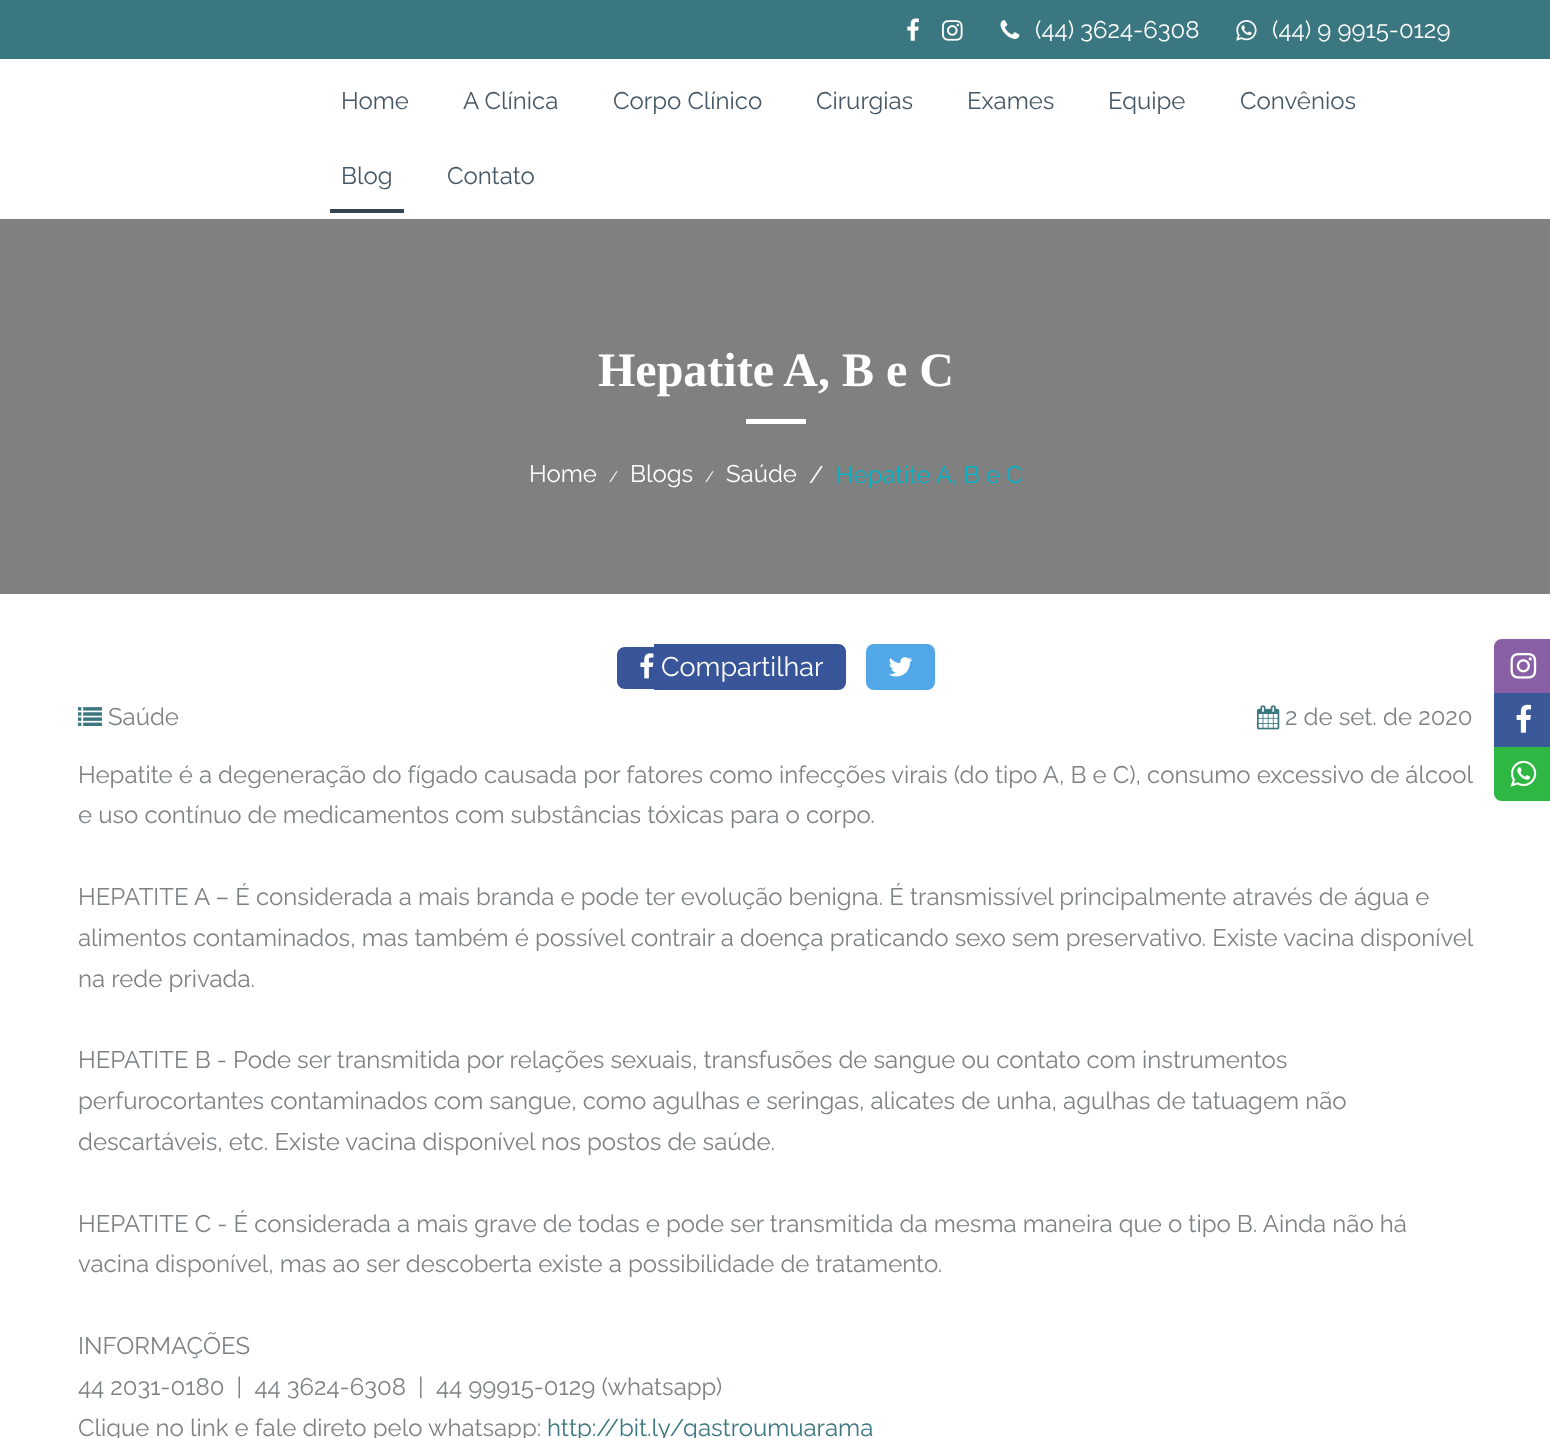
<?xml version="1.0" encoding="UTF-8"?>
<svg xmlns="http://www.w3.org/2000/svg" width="1550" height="1438">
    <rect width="100%" height="100%" fill="#FFFFFF"/>
    <rect x="0" y="0" width="1550" height="59" fill="#3B7780"/>
    <image x="907" y="18" width="12" height="23" href="img_01.png"/>
    <image x="942" y="20" width="21" height="21" href="img_02.png"/>
    <image x="1000" y="20" width="20" height="19" href="img_03.png"/>
    <text x="1035" y="38" font-family="Raleway" font-size="24" fill="#FFFFFF">(44) 3624-6308</text>
    <image x="1236" y="20" width="21" height="21" href="img_04.png"/>
    <text x="1272" y="38" font-family="Raleway" font-size="24" fill="#FFFFFF">(44) 9 9915-0129</text>
    <text x="341" y="109" font-family="Raleway" font-size="24" fill="#465765">Home</text>
    <text x="463" y="109" font-family="Raleway" font-size="24" fill="#465765">A Clínica</text>
    <text x="613" y="109" font-family="Raleway" font-size="24" fill="#465765">Corpo Clínico</text>
    <text x="816" y="109" font-family="Raleway" font-size="24" fill="#465765">Cirurgias</text>
    <text x="967" y="109" font-family="Raleway" font-size="24" fill="#465765">Exames</text>
    <text x="1108" y="109" font-family="Raleway" font-size="24" fill="#465765">Equipe</text>
    <text x="1240" y="109" font-family="Raleway" font-size="24" fill="#465765">Convênios</text>
    <text x="341" y="184" font-family="Raleway" font-size="24" fill="#465765">Blog</text>
    <rect x="330" y="209" width="74" height="4" fill="#37434D"/>
    <text x="447" y="184" font-family="Raleway" font-size="24" fill="#465765">Contato</text>
    <rect x="0" y="219" width="1550" height="375" fill="#808080"/>
    <text x="598" y="386" font-family="Liberation Serif" font-size="48" font-weight="700" fill="#FFFFFF">Hepatite A, B e C</text>
    <rect x="746" y="419" width="60" height="5" fill="#FFFFFF"/>
    <text x="529" y="482" font-family="Raleway" font-size="24" fill="#FFFFFF">Home</text>
    <text x="609" y="482" font-family="Raleway" font-size="15" fill="#FFFFFF">/</text>
    <text x="630" y="482" font-family="Raleway" font-size="24" fill="#FFFFFF">Blogs</text>
    <text x="705" y="482" font-family="Raleway" font-size="15" fill="#FFFFFF">/</text>
    <text x="726" y="482" font-family="Raleway" font-size="24" fill="#FFFFFF">Saúde</text>
    <text x="809" y="483" font-family="Raleway" font-size="24" fill="#FFFFFF">/</text>
    <text x="836" y="483" font-family="Raleway" font-size="24" fill="#03B5C9">Hepatite A, B e C</text>
    <path d="M 625 647 H 654 V 689 H 625 C 620.5 689 617 685.5 617 681 V 655 C 617 650.5 620.5 647 625 647 Z" fill="#385599"/>
    <path d="M 654 644 H 838 C 842.5 644 846 647.5 846 652 V 682 C 846 686.5 842.5 690 838 690 H 654 Z" fill="#385599"/>
    <image x="640" y="653" width="14" height="26" href="img_05.png"/>
    <text x="661" y="676" font-family="Raleway" font-size="27" fill="#FFFFFF">Compartilhar</text>
    <rect x="866" y="644" width="69" height="46" rx="8" fill="#52A7E7"/>
    <image x="888" y="657" width="25" height="20" href="img_06.png"/>
    <image x="78" y="707" width="24" height="19" href="img_07.png"/>
    <text x="108" y="725" font-family="Raleway" font-size="24" fill="#7D8285">Saúde</text>
    <image x="1257" y="705" width="23" height="25" href="img_08.png"/>
    <text x="1285" y="725" font-family="Raleway" font-size="24" fill="#7D8285">2 de set. de 2020</text>
    <text font-family="Raleway" font-size="24" fill="#7D8285">
        <tspan x="78" y="783">Hepatite é a degeneração do fígado causada por fatores como infecções virais (do tipo A, B e C), consumo excessivo de álcool</tspan>
        <tspan x="78" y="823">e uso contínuo de medicamentos com substâncias tóxicas para o corpo.</tspan>
    </text>
    <text font-family="Raleway" font-size="24" fill="#7D8285">
        <tspan x="78" y="905">HEPATITE A – É considerada a mais branda e pode ter evolução benigna. É transmissível principalmente através de água e</tspan>
        <tspan x="78" y="946">alimentos contaminados, mas também é possível contrair a doença praticando sexo sem preservativo. Existe vacina disponível</tspan>
        <tspan x="78" y="987">na rede privada.</tspan>
    </text>
    <text font-family="Raleway" font-size="24" fill="#7D8285">
        <tspan x="78" y="1068">HEPATITE B - Pode ser transmitida por relações sexuais, transfusões de sangue ou contato com instrumentos</tspan>
        <tspan x="78" y="1109">perfurocortantes contaminados com sangue, como agulhas e seringas, alicates de unha, agulhas de tatuagem não</tspan>
        <tspan x="78" y="1150">descartáveis, etc. Existe vacina disponível nos postos de saúde.</tspan>
    </text>
    <text font-family="Raleway" font-size="24" fill="#7D8285">
        <tspan x="78" y="1232">HEPATITE C - É considerada a mais grave de todas e pode ser transmitida da mesma maneira que o tipo B. Ainda não há</tspan>
        <tspan x="78" y="1272">vacina disponível, mas ao ser descoberta existe a possibilidade de tratamento.</tspan>
    </text>
    <text font-family="Raleway" font-size="24" fill="#7D8285" xml:space="preserve"><tspan x="78" y="1354">INFORMAÇÕES</tspan><tspan x="78" y="1395">44 2031-0180  |  44 3624-6308  |  44 99915-0129 (whatsapp)</tspan><tspan x="78" y="1436">Clique no link e fale direto pelo whatsapp:</tspan></text>
    <text x="547" y="1436" font-family="Raleway" font-size="24" fill="#3B7780">http://bit.ly/gastroumuarama</text>
    <path d="M 1502 639 H 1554 V 693 H 1494 V 647 C 1494 642.5 1497.5 639 1502 639 Z" fill="#8960A6"/>
    <image x="1510" y="652" width="27" height="27" href="img_09.png"/>
    <rect x="1494" y="693" width="56" height="54" fill="#3B5998"/>
    <image x="1516" y="704" width="16" height="29" href="img_10.png"/>
    <path d="M 1494 747 H 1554 V 801 H 1502 C 1497.5 801 1494 797.5 1494 793 Z" fill="#2EB743"/>
    <image x="1510" y="760" width="27" height="27" href="img_11.png"/>
</svg>
